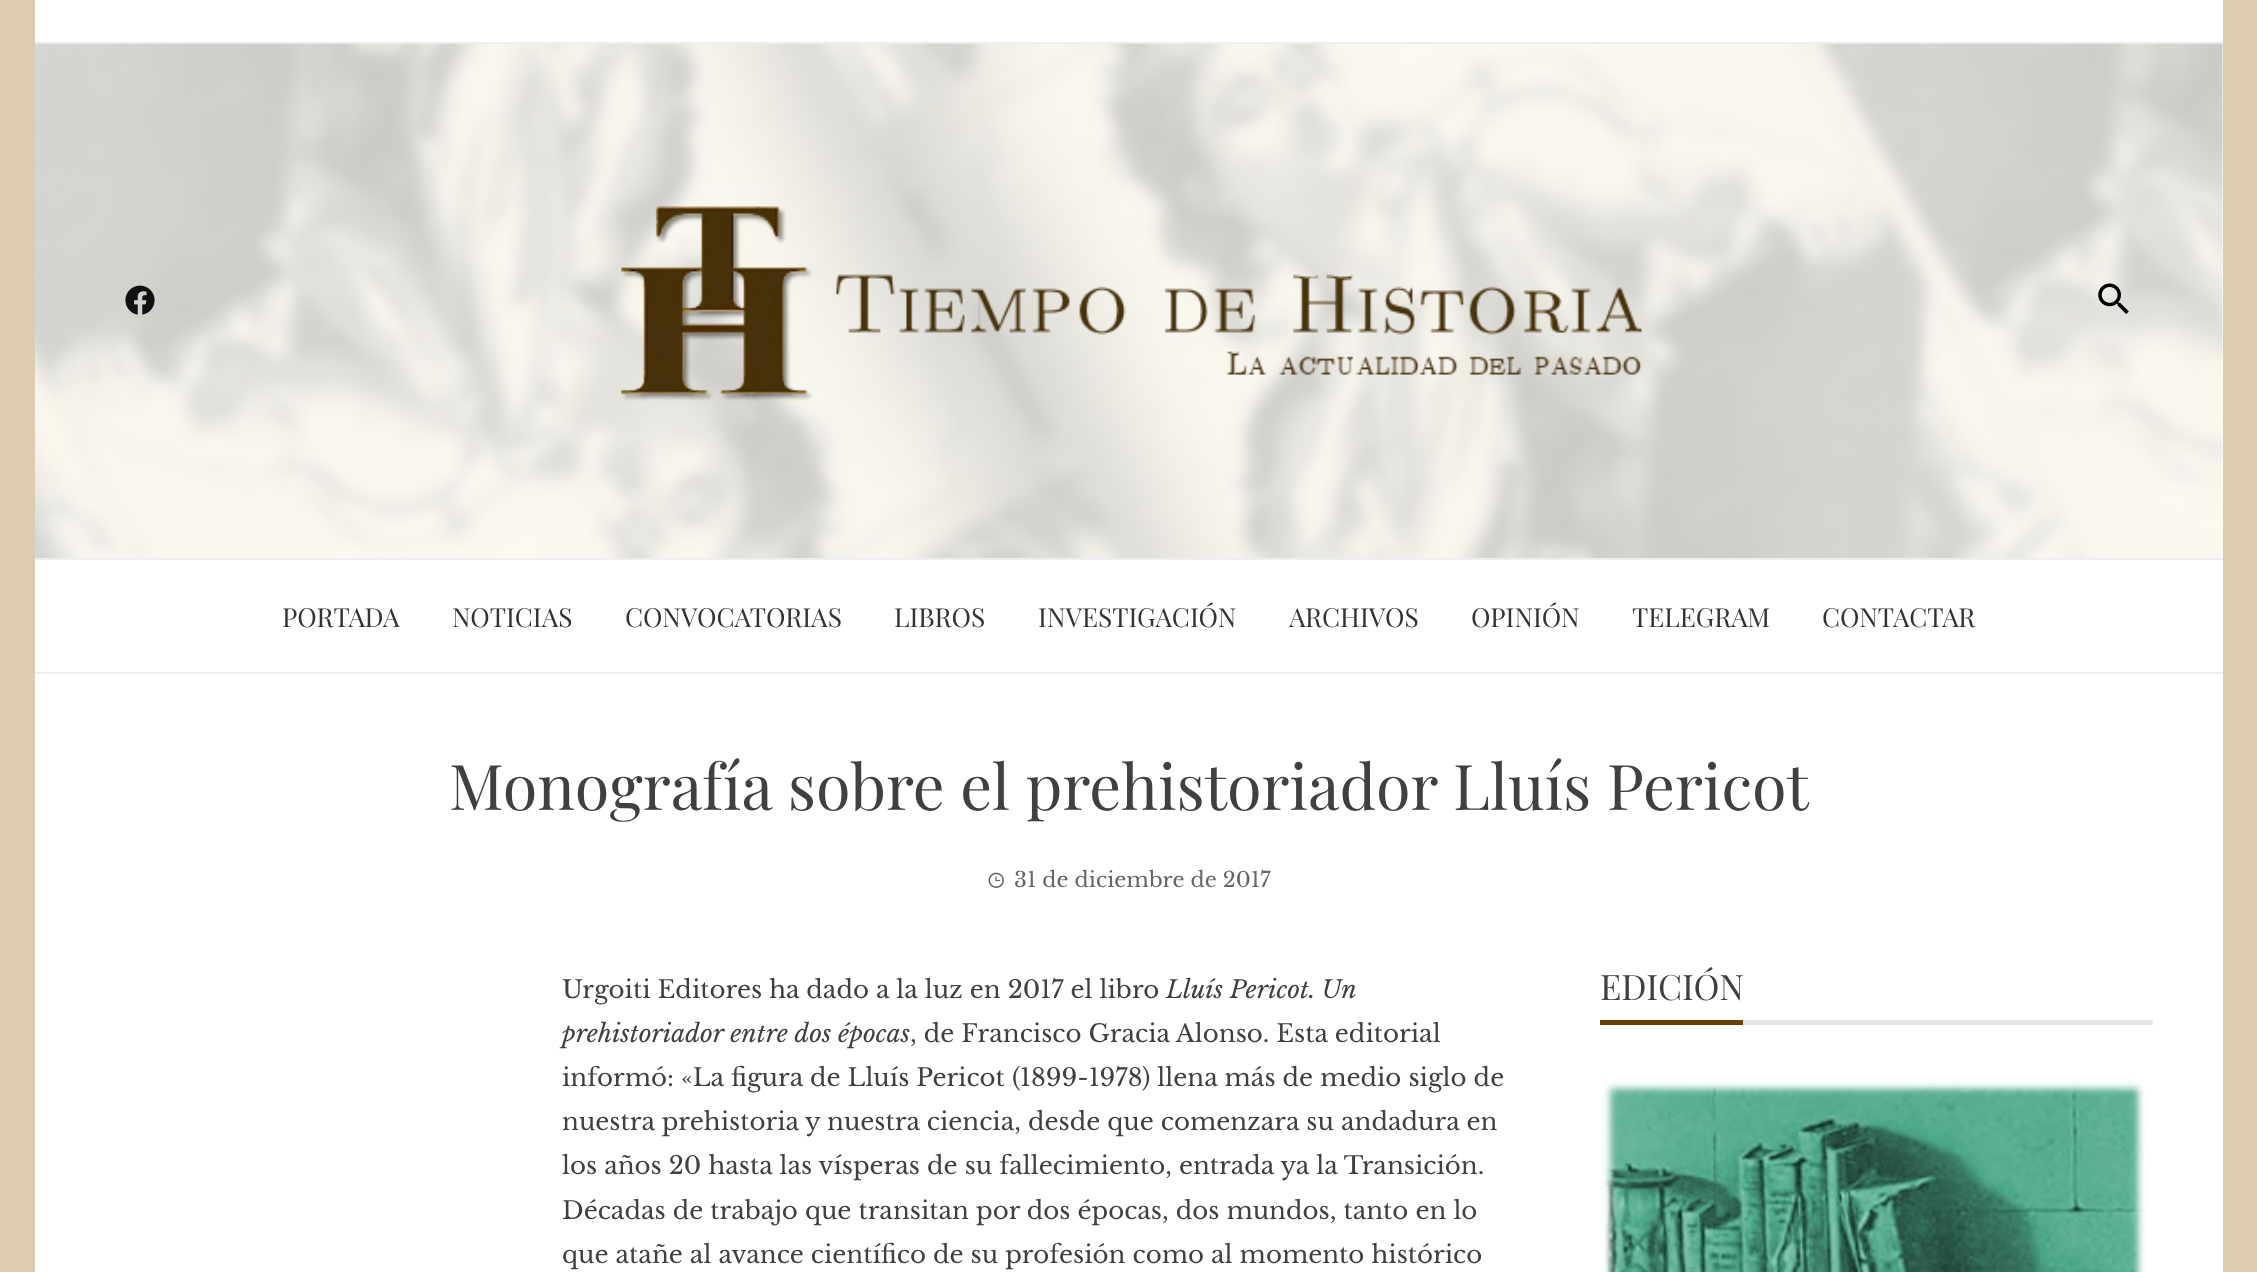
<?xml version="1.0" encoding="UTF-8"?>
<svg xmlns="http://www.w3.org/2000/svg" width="2257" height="1272">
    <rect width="100%" height="100%" fill="#DDCCB1"/>
    <rect x="35" y="0" width="2188" height="1272" fill="#FFFFFF"/>
    <rect x="35" y="42" width="2188" height="2" fill="#EEEEEE"/>
    <image x="35" y="43" width="2188" height="515" href="img_01.png"/>
    <image x="125" y="285" width="30" height="30" href="img_02.png"/>
    <image x="620" y="206" width="1022" height="195" href="img_03.png"/>
    <image x="2098" y="283" width="31" height="31" href="img_04.png"/>
    <rect x="35" y="558" width="2188" height="2" fill="#EEEEEE"/>
    <rect x="35" y="672" width="2188" height="2" fill="#EEEEEE"/>
    <text x="282" y="627" font-family="Playfair Display" font-size="26.25" fill="#333333">PORTADA</text>
    <text x="452" y="627" font-family="Playfair Display" font-size="26.25" fill="#333333">NOTICIAS</text>
    <text x="625" y="627" font-family="Playfair Display" font-size="26.25" fill="#333333">CONVOCATORIAS</text>
    <text x="894" y="627" font-family="Playfair Display" font-size="26.25" fill="#333333">LIBROS</text>
    <text x="1038" y="627" font-family="Playfair Display" font-size="26.25" fill="#333333">INVESTIGACIÓN</text>
    <text x="1289" y="627" font-family="Playfair Display" font-size="26.25" fill="#333333">ARCHIVOS</text>
    <text x="1471" y="627" font-family="Playfair Display" font-size="26.25" fill="#333333">OPINIÓN</text>
    <text x="1632" y="627" font-family="Playfair Display" font-size="26.25" fill="#333333">TELEGRAM</text>
    <text x="1822" y="627" font-family="Playfair Display" font-size="26.25" fill="#333333">CONTACTAR</text>
    <text x="449" y="810" font-family="Playfair Display" font-size="63" fill="#404040">Monografía sobre el prehistoriador Lluís Pericot</text>
    <image x="988" y="872" width="16" height="16" href="img_05.png"/>
    <text x="1014" y="887" font-family="Libre Baskerville" font-size="21" fill="#666666">31 de diciembre de 2017</text>
    <text x="562" y="998" font-family="Libre Baskerville" font-size="24.5" fill="#404040">Urgoiti Editores ha dado a la luz en 2017 el libro</text>
    <text x="1166" y="998" font-family="Libre Baskerville" font-size="24.5" font-style="italic" fill="#404040">Lluís Pericot. Un</text>
    <text x="562" y="1042" font-family="Libre Baskerville" font-size="24.5" font-style="italic" fill="#404040">prehistoriador entre dos épocas</text>
    <text x="910" y="1042" font-family="Libre Baskerville" font-size="24.5" fill="#404040">, de Francisco Gracia Alonso. Esta editorial</text>
    <text font-family="Libre Baskerville" font-size="24.5" fill="#404040">
        <tspan x="562" y="1086">informó: «La figura de Lluís Pericot (1899-1978) llena más de medio siglo de</tspan>
        <tspan x="562" y="1130">nuestra prehistoria y nuestra ciencia, desde que comenzara su andadura en</tspan>
        <tspan x="562" y="1174">los años 20 hasta las vísperas de su fallecimiento, entrada ya la Transición.</tspan>
        <tspan x="562" y="1219">Décadas de trabajo que transitan por dos épocas, dos mundos, tanto en lo</tspan>
        <tspan x="562" y="1263">que atañe al avance científico de su profesión como al momento histórico</tspan>
    </text>
    <rect x="1743" y="1020" width="410" height="5" fill="#E6E6E6"/>
    <text x="1600" y="1000" font-family="Playfair Display" font-size="35" fill="#404040">EDICIÓN</text>
    <rect x="1600" y="1020" width="143" height="5" fill="#684000"/>
    <image x="1599" y="1079" width="547" height="193" href="img_06.png"/>
</svg>
